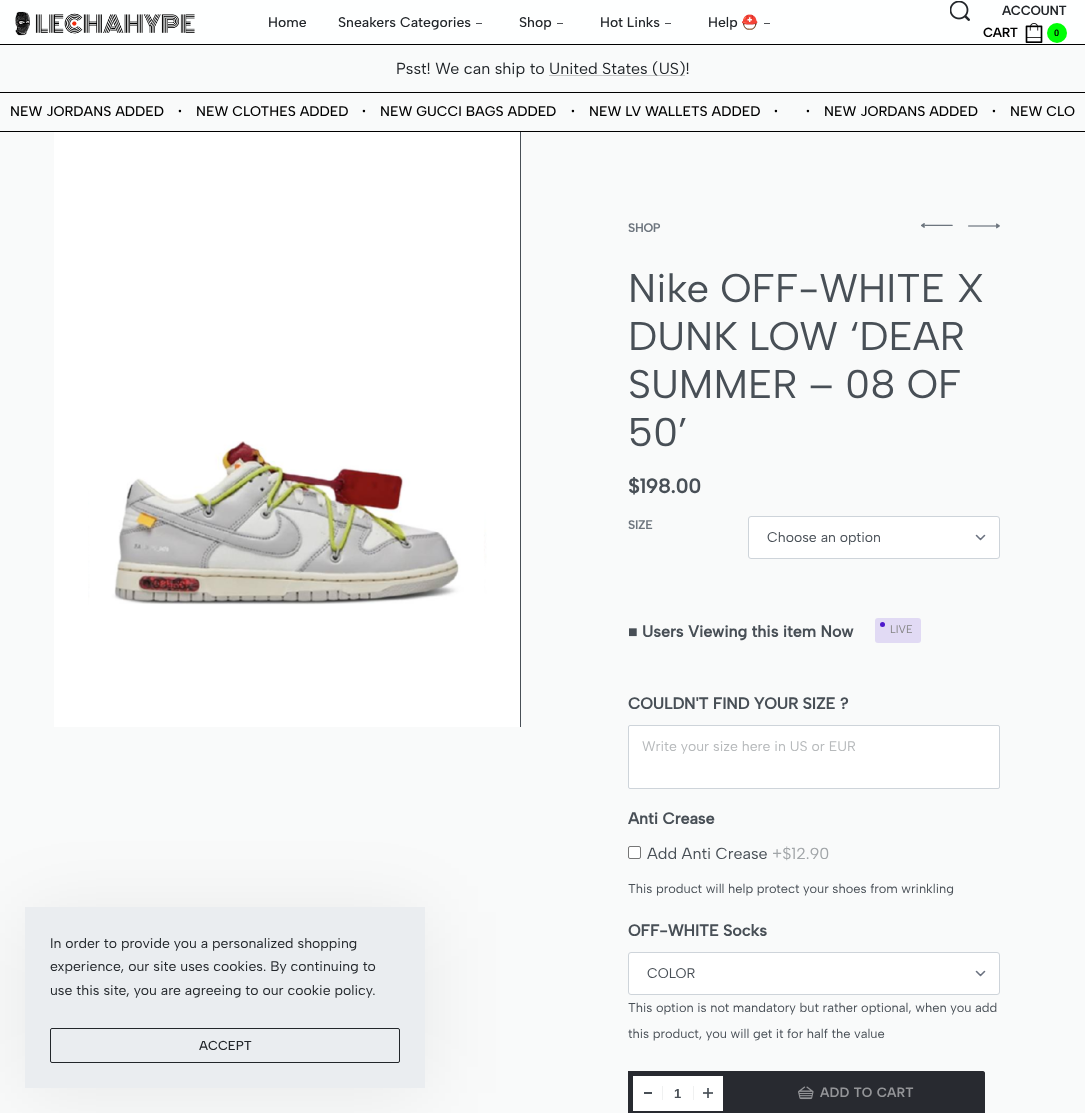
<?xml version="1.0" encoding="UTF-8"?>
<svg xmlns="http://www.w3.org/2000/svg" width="1085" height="1113">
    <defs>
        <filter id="blur1" x="-50%" y="-200%" width="200%" height="500%"><feGaussianBlur stdDeviation="40"/></filter>
    </defs>
    <rect width="100%" height="100%" fill="#F9FAFA"/>
    <rect x="0" y="0" width="1085" height="44" fill="#FEFFFF"/>
    <rect x="0" y="44" width="1085" height="1" fill="#000000"/>
    <image x="15" y="11" width="180" height="25" href="img_01.png"/>
    <text x="268" y="27" font-family="Albert Sans" font-size="14" font-weight="500" fill="#22262A">Home</text>
    <text x="338" y="27" font-family="Albert Sans" font-size="14" font-weight="500" fill="#22262A">Sneakers Categories</text>
    <rect x="476" y="23" width="6" height="1" fill="#4E5155"/>
    <text x="519" y="27" font-family="Albert Sans" font-size="14" font-weight="500" fill="#22262A">Shop</text>
    <rect x="557" y="23" width="6" height="1" fill="#4E5155"/>
    <text x="600" y="27" font-family="Albert Sans" font-size="14" font-weight="500" fill="#22262A">Hot Links</text>
    <rect x="665" y="23" width="6" height="1" fill="#4E5155"/>
    <text x="708" y="27" font-family="Albert Sans" font-size="14" font-weight="500" fill="#22262A">Help</text>
    <text x="741" y="27" font-family="Noto Color Emoji" font-size="14" fill="#22262A">⛑️</text>
    <rect x="764" y="23" width="6" height="1" fill="#4E5155"/>
    <image x="950" y="1" width="20" height="20" href="img_02.png"/>
    <text x="1002" y="15" font-family="Albert Sans" font-size="12.8" font-weight="700" fill="#22262A">ACCOUNT</text>
    <text x="983" y="37" font-family="Albert Sans" font-size="12.8" font-weight="700" fill="#000000">CART</text>
    <image x="1025" y="23" width="18" height="20" href="img_03.png"/>
    <circle cx="1057" cy="33" r="10" fill="#00FF06"/>
    <text x="1054" y="36" font-family="Roboto" font-size="9" font-weight="600" fill="#000000">0</text>
    <rect x="0" y="92" width="1085" height="1" fill="#000000"/>
    <text x="396" y="74" font-family="Albert Sans" font-size="16" fill="#22262A">Psst! We can ship to</text>
    <rect x="549" y="75" width="136" height="1" fill="#C7C8C8"/>
    <text x="549" y="74" font-family="Albert Sans" font-size="16" fill="#22262A">United States (US)!</text>
    <rect x="0" y="131" width="1085" height="1" fill="#000000"/>
    <text x="10" y="116" font-family="Albert Sans" font-size="14" font-weight="500" fill="#000000">NEW JORDANS ADDED</text>
    <text x="178" y="115" font-family="Roboto" font-size="11" font-weight="500" fill="#000000">•</text>
    <text x="196" y="116" font-family="Albert Sans" font-size="14" font-weight="500" fill="#000000">NEW CLOTHES ADDED</text>
    <text x="362" y="115" font-family="Roboto" font-size="11" font-weight="500" fill="#000000">•</text>
    <text x="380" y="116" font-family="Albert Sans" font-size="14" font-weight="500" fill="#000000">NEW GUCCI BAGS ADDED</text>
    <text x="571" y="115" font-family="Roboto" font-size="11" font-weight="500" fill="#000000">•</text>
    <text x="589" y="116" font-family="Albert Sans" font-size="14" font-weight="500" fill="#000000">NEW LV WALLETS ADDED</text>
    <text x="774" y="115" font-family="Roboto" font-size="11" font-weight="500" fill="#000000">•</text>
    <text x="806" y="115" font-family="Roboto" font-size="11" font-weight="500" fill="#000000">•</text>
    <text x="824" y="116" font-family="Albert Sans" font-size="14" font-weight="500" fill="#000000">NEW JORDANS ADDED</text>
    <text x="992" y="115" font-family="Roboto" font-size="11" font-weight="500" fill="#000000">•</text>
    <text x="1010" y="116" font-family="Albert Sans" font-size="14" font-weight="500" fill="#000000">NEW CLO</text>
    <rect x="54" y="132" width="466" height="595" fill="#FFFFFF"/>
    <rect x="520" y="132" width="1" height="595" fill="#484F56"/>
    <image x="88" y="441" width="399" height="164" href="img_04.png"/>
    <text x="628" y="232" font-family="Albert Sans" font-size="12" font-weight="700" fill="#6D757E">SHOP</text>
    <image x="921" y="223" width="32" height="5" href="img_05.png"/>
    <image x="968" y="223" width="32" height="6" href="img_06.png"/>
    <text font-family="Albert Sans" font-size="40" fill="#484F56">
        <tspan x="628" y="302">Nike OFF-WHITE X</tspan>
        <tspan x="628" y="350">DUNK LOW ‘DEAR</tspan>
        <tspan x="628" y="398">SUMMER – 08 OF</tspan>
        <tspan x="628" y="446">50’</tspan>
    </text>
    <text x="628" y="493" font-family="Albert Sans" font-size="20" font-weight="700" fill="#484F56">$198.00</text>
    <text x="628" y="529" font-family="Albert Sans" font-size="12" font-weight="700" fill="#6D757E">SIZE</text>
    <rect x="749" y="517" width="250" height="41" rx="2" fill="#FFFFFF"/>
    <path d="M 976.5 535.5 L 980.5 539.5 L 984.5 535.5" fill="none" stroke="#6B7280" stroke-width="1.6" stroke-linecap="round" stroke-linejoin="round"/>
    <rect x="748.5" y="516.5" width="251" height="42" rx="2.5" fill="none" stroke="#CED4DA"/>
    <text x="767" y="542" font-family="Albert Sans" font-size="14" fill="#484F56">Choose an option</text>
    <text x="628" y="637" font-family="Liberation Sans" font-size="16" font-weight="700" fill="#484F56">■</text>
    <text x="642" y="637" font-family="Albert Sans" font-size="16" font-weight="700" fill="#484F56">Users Viewing this item Now</text>
    <rect x="875" y="618" width="46" height="25" rx="3" fill="#E1DAF4"/>
    <circle cx="882.5" cy="624.5" r="2.5" fill="#4D18CC"/>
    <text x="890" y="633" font-family="Albert Sans" font-size="11" fill="#858585">LIVE</text>
    <text x="628" y="709" font-family="Albert Sans" font-size="16" font-weight="700" fill="#484F56">COULDN'T FIND YOUR SIZE ?</text>
    <rect x="628.5" y="725.5" width="371" height="63" rx="1.5" fill="#FFFFFF" stroke="#CED4DA"/>
    <text x="642" y="751" font-family="Albert Sans" font-size="14" fill="#B6B9BB">Write your size here in US or EUR</text>
    <text x="628" y="824" font-family="Albert Sans" font-size="16" font-weight="700" fill="#484F56">Anti Crease</text>
    <rect x="628.5" y="846.5" width="12" height="12" rx="1.5" fill="#FFFFFF" stroke="#767676"/>
    <text x="647" y="859" font-family="Albert Sans" font-size="16" fill="#484F56">Add Anti Crease</text>
    <text x="772" y="859" font-family="Albert Sans" font-size="16" fill="#A1A5A8">+$12.90</text>
    <text x="628" y="893" font-family="Albert Sans" font-size="12.8" fill="#484F56">This product will help protect your shoes from wrinkling</text>
    <text x="628" y="936" font-family="Albert Sans" font-size="16" font-weight="700" fill="#484F56">OFF-WHITE Socks</text>
    <rect x="629" y="953" width="370" height="41" rx="2" fill="#FFFFFF"/>
    <path d="M 976.5 971.5 L 980.5 975.5 L 984.5 971.5" fill="none" stroke="#6B7280" stroke-width="1.6" stroke-linecap="round" stroke-linejoin="round"/>
    <rect x="628.5" y="952.5" width="371" height="42" rx="2.5" fill="none" stroke="#CED4DA"/>
    <text x="647" y="978" font-family="Albert Sans" font-size="14" fill="#484F56">COLOR</text>
    <text x="628" y="1012" font-family="Albert Sans" font-size="12.8" fill="#484F56">This option is not mandatory but rather optional, when you add</text>
    <text x="628" y="1038" font-family="Albert Sans" font-size="12.8" fill="#484F56">this product, you will get it for half the value</text>
    <rect x="633" y="1076" width="90" height="35" fill="#FFFFFF"/>
    <path d="M 630.5 1073.5 H 725.5 V 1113.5 H 630.5 Z" fill="none" stroke="#282A30" stroke-width="5"/>
    <rect x="644" y="1092" width="8" height="2" fill="#484F56"/>
    <rect x="662" y="1086" width="1" height="14" fill="#F0F1F1"/>
    <text x="674" y="1098" font-family="Liberation Sans" font-size="13" font-weight="700" fill="#484F56">1</text>
    <rect x="693" y="1086" width="1" height="14" fill="#F0F1F1"/>
    <image x="703" y="1088" width="10" height="10" href="img_07.png"/>
    <path d="M 728 1071 H 983 C 984 1071 985 1072 985 1073 V 1113 C 985 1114 984 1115 983 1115 H 728 Z" fill="#282A30"/>
    <image x="798" y="1086" width="16" height="14" href="img_08.png"/>
    <text x="820" y="1097" font-family="Albert Sans" font-size="13" font-weight="700" letter-spacing="0.5" fill="#949598">ADD TO CART</text>
    <rect x="25" y="912" width="400" height="181" fill="#000000" fill-opacity="0.07" filter="url(#blur1)"/>
    <rect x="25" y="907" width="400" height="181" fill="#EAEDF0"/>
    <text font-family="Albert Sans" font-size="14" fill="#22262A">
        <tspan x="50" y="948">In order to provide you a personalized shopping</tspan>
        <tspan x="50" y="971">experience, our site uses cookies. By continuing to</tspan>
        <tspan x="50" y="995">use this site, you are agreeing to our cookie policy.</tspan>
    </text>
    <rect x="50.5" y="1028.5" width="349" height="34" rx="1.5" fill="none" stroke="#22262A"/>
    <text x="199" y="1050" font-family="Albert Sans" font-size="13" font-weight="500" fill="#22262A">ACCEPT</text>
</svg>
